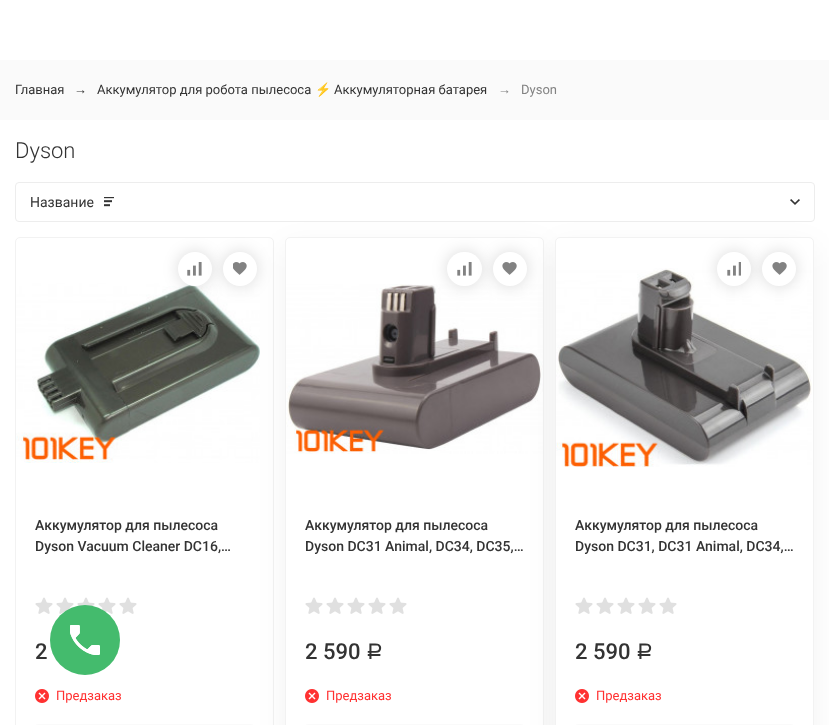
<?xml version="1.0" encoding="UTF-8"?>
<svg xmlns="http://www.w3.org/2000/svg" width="829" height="725">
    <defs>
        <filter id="blur1" x="-50%" y="-200%" width="200%" height="500%"><feGaussianBlur stdDeviation="8"/></filter>
        <filter id="blur2" x="-50%" y="-200%" width="200%" height="500%"><feGaussianBlur stdDeviation="15"/></filter>
    </defs>
    <rect width="100%" height="100%" fill="#FFFFFF"/>
    <rect x="0" y="60" width="829" height="60" fill="#FAFAFA"/>
    <text x="15" y="94" font-family="Roboto" font-size="13" fill="#333333">Главная</text>
    <text x="74" y="94" font-family="Liberation Sans" font-size="13" fill="#333333">→</text>
    <text x="97" y="94" font-family="Roboto" font-size="13" fill="#333333">Аккумулятор для робота пылесоса</text>
    <text x="315" y="94" font-family="Noto Color Emoji" font-size="13" fill="#333333">⚡️</text>
    <text x="334" y="94" font-family="Roboto" font-size="13" fill="#333333">Аккумуляторная батарея</text>
    <text x="498" y="94" font-family="Liberation Sans" font-size="13" fill="#828282">→</text>
    <text x="521" y="94" font-family="Roboto" font-size="13" fill="#828282">Dyson</text>
    <text x="15" y="158" font-family="Roboto" font-size="22" font-weight="300" fill="#333333">Dyson</text>
    <rect x="15.5" y="182.5" width="799" height="39" rx="3.5" fill="none" stroke="#EDEDED"/>
    <text x="30" y="207" font-family="Roboto" font-size="14" fill="#333333">Название</text>
    <image x="104" y="197" width="10" height="10" href="img_01.png"/>
    <image x="790" y="199" width="10" height="6" href="img_02.png"/>
    <rect x="15.5" y="237.5" width="258" height="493" rx="4.5" fill="none" stroke="#F2F2F2"/>
    <image x="16" y="283" width="244" height="180" href="img_05.png"/>
    <rect x="178" y="252" width="34" height="34" rx="17" fill="#000000" fill-opacity="0.15" filter="url(#blur1)"/>
    <circle cx="195" cy="269" r="17" fill="#FFFFFF"/>
    <rect x="223" y="252" width="34" height="34" rx="17" fill="#000000" fill-opacity="0.15" filter="url(#blur1)"/>
    <image x="187" y="262" width="15" height="14" href="img_03.png"/>
    <rect x="35" y="724" width="219" height="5" rx="4" fill="#FAFAFA"/>
    <rect x="285" y="247" width="259" height="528" rx="5" fill="#000000" fill-opacity="0.05" filter="url(#blur2)"/>
    <circle cx="240" cy="269" r="17" fill="#FFFFFF"/>
    <image x="233" y="262" width="14" height="13" href="img_04.png"/>
    <text font-family="Roboto" font-size="14" font-weight="500" fill="#333333">
        <tspan x="35" y="530">Аккумулятор для пылесоса</tspan>
        <tspan x="35" y="551">Dyson Vacuum Cleaner DC16,…</tspan>
    </text>
    <image x="35" y="597" width="18" height="17" href="img_06.png"/>
    <image x="56" y="597" width="18" height="17" href="img_06.png"/>
    <image x="77" y="597" width="18" height="9" href="img_07.png"/>
    <image x="98" y="597" width="18" height="17" href="img_06.png"/>
    <image x="119" y="597" width="18" height="17" href="img_06.png"/>
    <text x="35" y="659" font-family="Roboto" font-size="22" font-weight="500" fill="#333333">2</text>
    <image x="35" y="689" width="14" height="14" href="img_08.png"/>
    <text x="56" y="700" font-family="Roboto" font-size="13" fill="#FF3131">Предзаказ</text>
    <rect x="285.5" y="237.5" width="258" height="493" rx="4.5" fill="#FFFFFF" stroke="#F2F2F2"/>
    <image x="286" y="284" width="257" height="170" href="img_11.png"/>
    <rect x="447" y="252" width="35" height="34" rx="17" fill="#000000" fill-opacity="0.15" filter="url(#blur1)"/>
    <rect x="447" y="252" width="35" height="34" rx="17" fill="#FFFFFF"/>
    <rect x="493" y="252" width="34" height="34" rx="17" fill="#000000" fill-opacity="0.15" filter="url(#blur1)"/>
    <image x="457" y="262" width="15" height="14" href="img_09.png"/>
    <rect x="305" y="724" width="219" height="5" rx="4" fill="#FAFAFA"/>
    <rect x="555" y="247" width="259" height="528" rx="5" fill="#000000" fill-opacity="0.05" filter="url(#blur2)"/>
    <circle cx="510" cy="269" r="17" fill="#FFFFFF"/>
    <image x="502" y="262" width="15" height="13" href="img_10.png"/>
    <text font-family="Roboto" font-size="14" font-weight="500" fill="#333333">
        <tspan x="305" y="530">Аккумулятор для пылесоса</tspan>
        <tspan x="305" y="551">Dyson DC31 Animal, DC34, DC35,…</tspan>
    </text>
    <image x="305" y="597" width="18" height="17" href="img_06.png"/>
    <image x="326" y="597" width="18" height="17" href="img_06.png"/>
    <image x="347" y="597" width="18" height="17" href="img_06.png"/>
    <image x="368" y="597" width="18" height="17" href="img_06.png"/>
    <image x="389" y="597" width="18" height="17" href="img_06.png"/>
    <text x="305" y="659" font-family="Roboto" font-size="22" font-weight="500" fill="#333333">2 590</text>
    <text x="366" y="659" font-family="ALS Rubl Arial" font-size="22" fill="#333333">Р</text>
    <image x="305" y="689" width="14" height="14" href="img_08.png"/>
    <text x="326" y="700" font-family="Roboto" font-size="13" fill="#FF3131">Предзаказ</text>
    <rect x="555.5" y="237.5" width="258" height="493" rx="4.5" fill="#FFFFFF" stroke="#F2F2F2"/>
    <image x="556" y="268" width="256" height="199" href="img_14.png"/>
    <rect x="717" y="252" width="34" height="34" rx="17" fill="#000000" fill-opacity="0.15" filter="url(#blur1)"/>
    <circle cx="734" cy="269" r="17" fill="#FFFFFF"/>
    <rect x="762" y="252" width="34" height="34" rx="17" fill="#000000" fill-opacity="0.15" filter="url(#blur1)"/>
    <image x="727" y="262" width="14" height="14" href="img_12.png"/>
    <circle cx="779" cy="269" r="17" fill="#FFFFFF"/>
    <image x="772" y="262" width="15" height="13" href="img_13.png"/>
    <text font-family="Roboto" font-size="14" font-weight="500" fill="#333333">
        <tspan x="575" y="530">Аккумулятор для пылесоса</tspan>
        <tspan x="575" y="551">Dyson DC31, DC31 Animal, DC34,…</tspan>
    </text>
    <image x="575" y="597" width="18" height="17" href="img_06.png"/>
    <image x="596" y="597" width="18" height="17" href="img_06.png"/>
    <image x="617" y="597" width="18" height="17" href="img_06.png"/>
    <image x="638" y="597" width="18" height="17" href="img_06.png"/>
    <image x="659" y="597" width="18" height="17" href="img_06.png"/>
    <text x="575" y="659" font-family="Roboto" font-size="22" font-weight="500" fill="#333333">2 590</text>
    <text x="636" y="659" font-family="ALS Rubl Arial" font-size="22" fill="#333333">Р</text>
    <image x="575" y="689" width="14" height="14" href="img_08.png"/>
    <text x="596" y="700" font-family="Roboto" font-size="13" fill="#FF3131">Предзаказ</text>
    <rect x="575" y="724" width="219" height="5" rx="4" fill="#FAFAFA"/>
    <circle cx="85" cy="640" r="35" fill="#44BB6E"/>
    <circle cx="85" cy="640" r="35" fill="#44BB6E" fill-opacity="0.1"/>
    <image x="70" y="625" width="30" height="30" href="img_15.png"/>
    <image x="70" y="625" width="30" height="30" href="img_16.png"/>
</svg>
